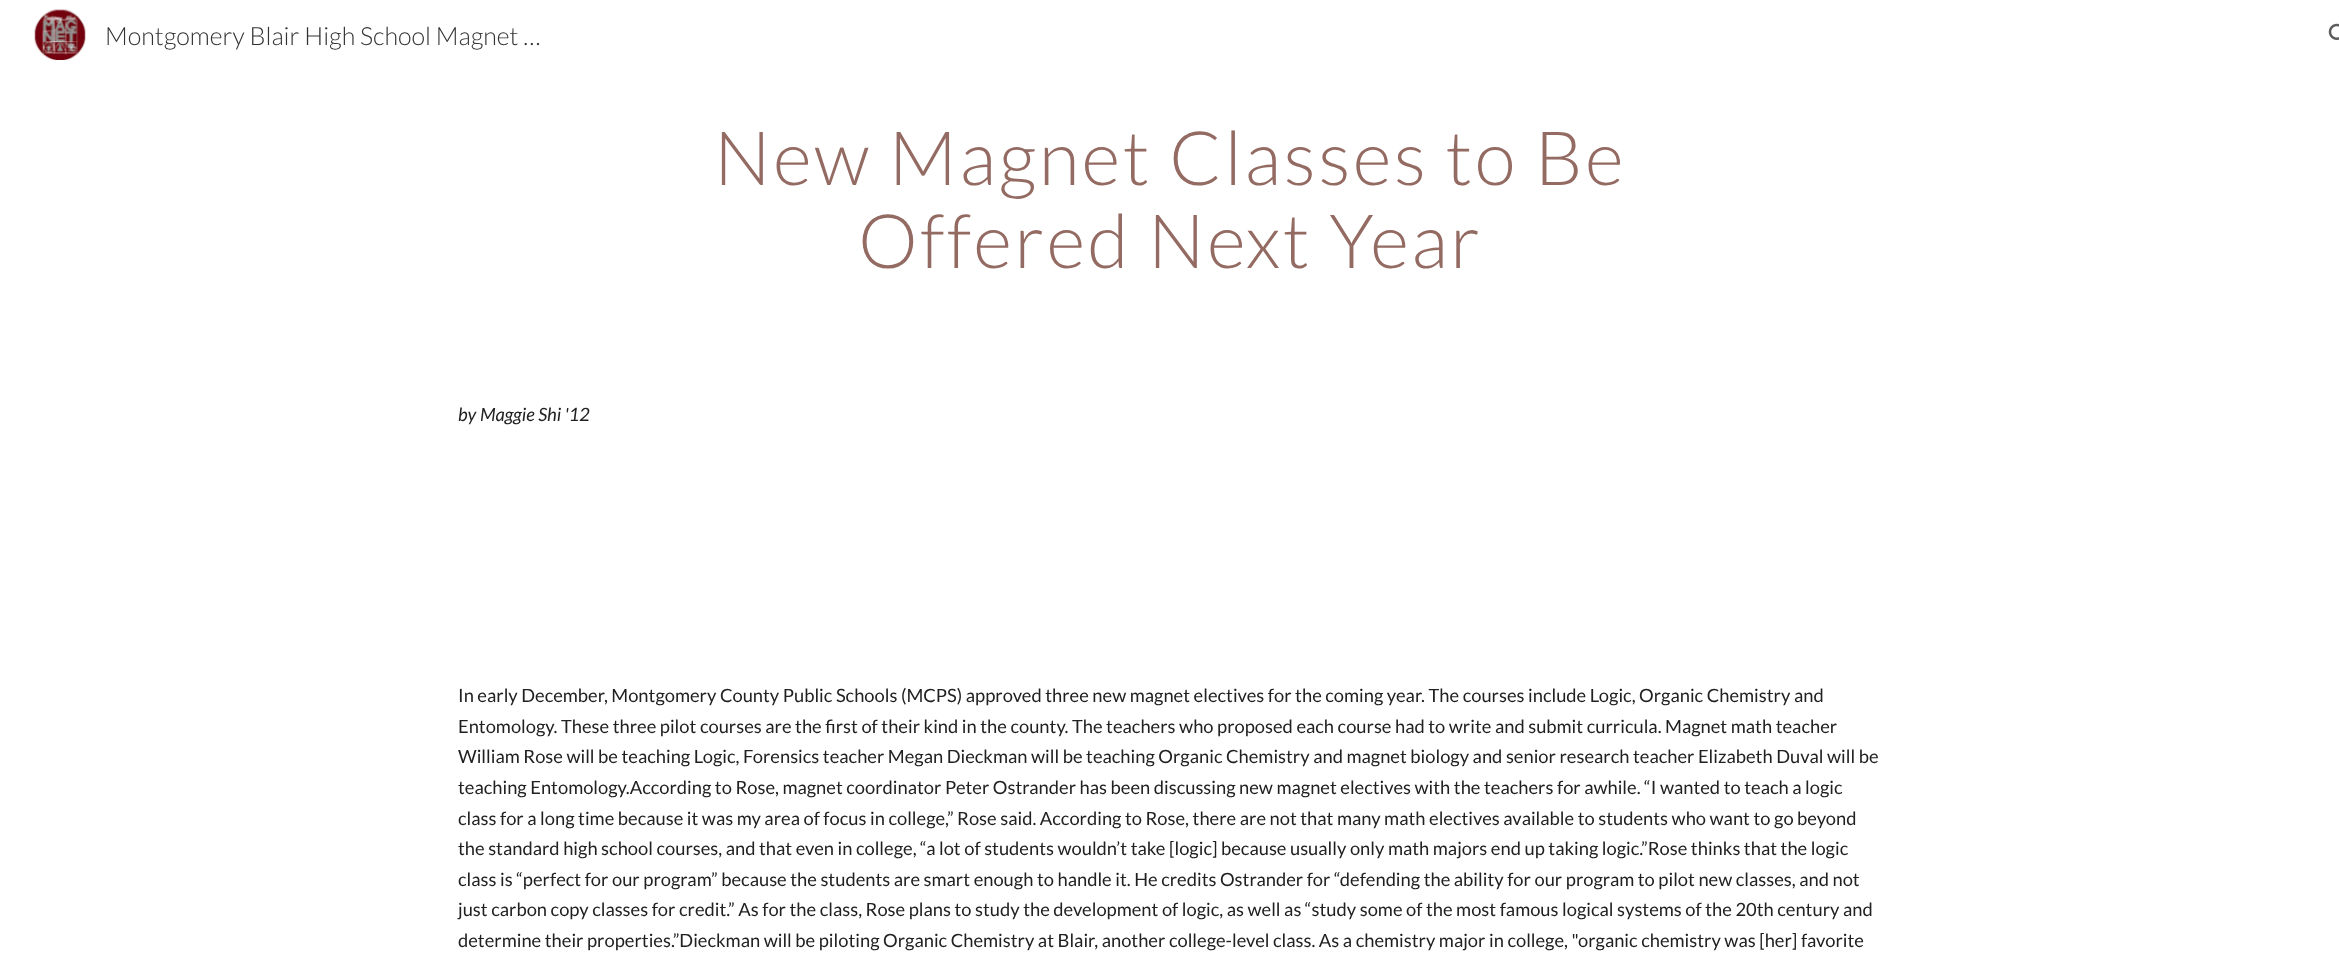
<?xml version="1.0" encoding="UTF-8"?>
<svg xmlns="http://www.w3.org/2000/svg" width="2339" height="954">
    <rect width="100%" height="100%" fill="#FFFFFF"/>
    <image x="34" y="9" width="52" height="51" href="img_01.png"/>
    <text x="105" y="45" font-family="Lato" font-size="25" font-weight="300" fill="#333333">Montgomery Blair High School Magnet …</text>
    <image x="2328" y="23" width="11" height="17" href="img_02.png"/>
    <text x="714" y="185" font-family="Lato" font-size="75" font-weight="300" letter-spacing="2.5" fill="#946B63">New Magnet Classes to Be</text>
    <text x="858" y="268" font-family="Lato" font-size="75" font-weight="300" letter-spacing="2.5" fill="#946B63">Offered Next Year</text>
    <text x="458" y="421" font-family="Lato" font-size="18.33" font-style="italic" fill="#212121">by Maggie Shi '12</text>
    <text font-family="Lato" font-size="18.33" fill="#212121">
        <tspan x="458" y="702">In early December, Montgomery County Public Schools (MCPS) approved three new magnet electives for the coming year. The courses include Logic, Organic Chemistry and</tspan>
        <tspan x="458" y="733">Entomology. These three pilot courses are the first of their kind in the county. The teachers who proposed each course had to write and submit curricula. Magnet math teacher</tspan>
        <tspan x="458" y="763">William Rose will be teaching Logic, Forensics teacher Megan Dieckman will be teaching Organic Chemistry and magnet biology and senior research teacher Elizabeth Duval will be</tspan>
        <tspan x="458" y="794">teaching Entomology.According to Rose, magnet coordinator Peter Ostrander has been discussing new magnet electives with the teachers for awhile. “I wanted to teach a logic</tspan>
        <tspan x="458" y="825">class for a long time because it was my area of focus in college,” Rose said. According to Rose, there are not that many math electives available to students who want to go beyond</tspan>
        <tspan x="458" y="855">the standard high school courses, and that even in college, “a lot of students wouldn’t take [logic] because usually only math majors end up taking logic.”Rose thinks that the logic</tspan>
        <tspan x="458" y="886">class is “perfect for our program” because the students are smart enough to handle it. He credits Ostrander for “defending the ability for our program to pilot new classes, and not</tspan>
        <tspan x="458" y="916">just carbon copy classes for credit.” As for the class, Rose plans to study the development of logic, as well as “study some of the most famous logical systems of the 20th century and</tspan>
        <tspan x="458" y="947">determine their properties.”Dieckman will be piloting Organic Chemistry at Blair, another college-level class. As a chemistry major in college, "organic chemistry was [her] favorite</tspan>
    </text>
</svg>
